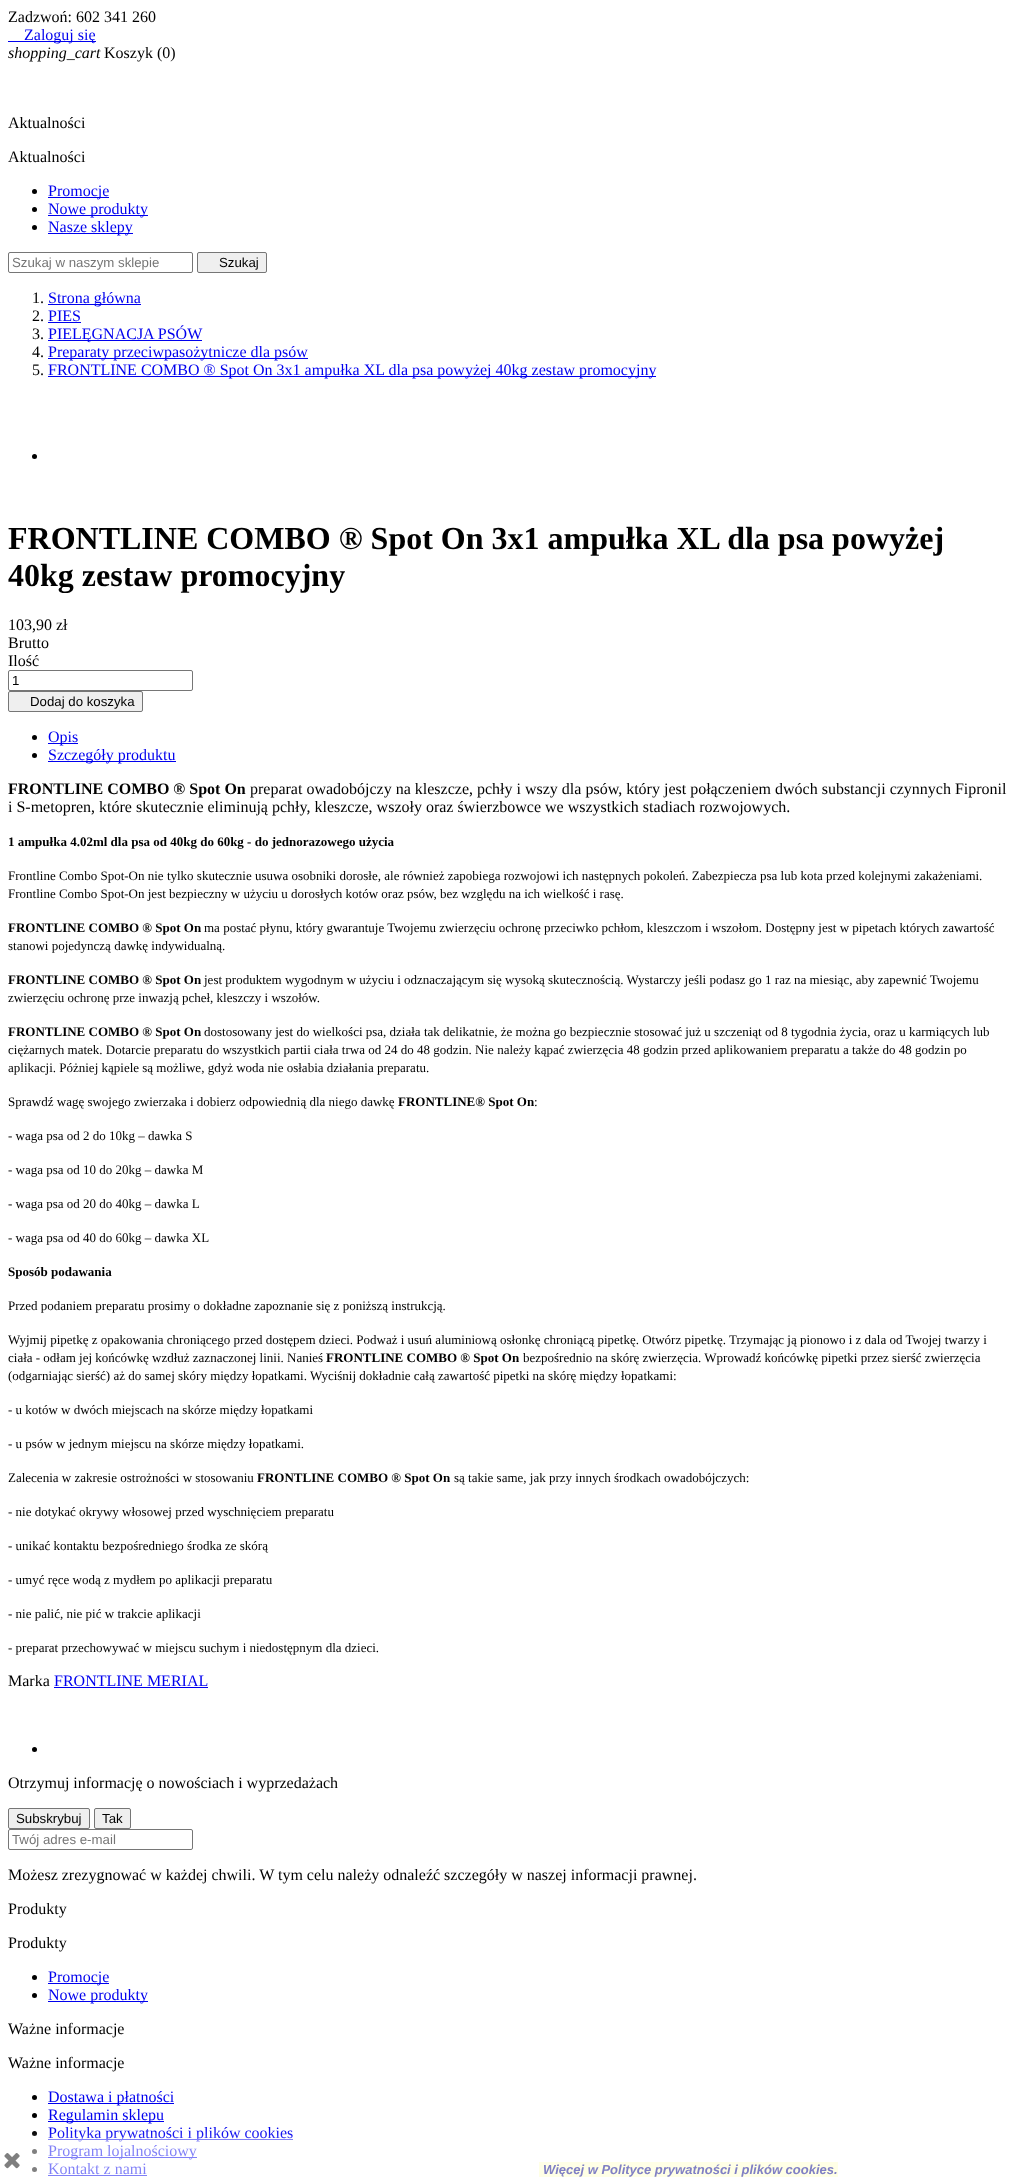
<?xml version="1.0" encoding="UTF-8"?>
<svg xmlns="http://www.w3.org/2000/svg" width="1015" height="2184">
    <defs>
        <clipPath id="clip1"><rect x="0" y="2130" width="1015" height="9"/></clipPath>
        <filter id="blur1" x="-50%" y="-200%" width="200%" height="500%"><feGaussianBlur stdDeviation="5"/></filter>
    </defs>
    <rect width="100%" height="100%" fill="#FFFFFF"/>
    <text x="8" y="22" font-family="Liberation Serif" font-size="16" fill="#000000">Zadzwoń: 602 341 260</text>
    <rect x="8" y="41" width="88" height="1" fill="#0000EE"/>
    <text x="24" y="40" font-family="Liberation Serif" font-size="16" fill="#0000EE">Zaloguj się</text>
    <text x="8" y="58" font-family="Liberation Serif" font-size="16" font-style="italic" fill="#000000">shopping_cart</text>
    <text x="104" y="58" font-family="Liberation Serif" font-size="16" fill="#000000">Koszyk (0)</text>
    <text x="8" y="128" font-family="Liberation Serif" font-size="16" fill="#000000">Aktualności</text>
    <text x="8" y="162" font-family="Liberation Serif" font-size="16" fill="#000000">Aktualności</text>
    <circle cx="34.5" cy="191.5" r="2.5" fill="#000000"/>
    <rect x="48" y="197" width="61" height="1" fill="#0000EE"/>
    <text x="48" y="196" font-family="Liberation Serif" font-size="16" fill="#0000EE">Promocje</text>
    <circle cx="34.5" cy="209.5" r="2.5" fill="#000000"/>
    <rect x="48" y="215" width="100" height="1" fill="#0000EE"/>
    <text x="48" y="214" font-family="Liberation Serif" font-size="16" fill="#0000EE">Nowe produkty</text>
    <circle cx="34.5" cy="227.5" r="2.5" fill="#000000"/>
    <rect x="48" y="233" width="85" height="1" fill="#0000EE"/>
    <text x="48" y="232" font-family="Liberation Serif" font-size="16" fill="#0000EE">Nasze sklepy</text>
    <rect x="8.5" y="252.5" width="184" height="20" rx="1.5" fill="none" stroke="#767676"/>
    <text x="12" y="267" font-family="Liberation Sans" font-size="13.25" fill="#757575">Szukaj w naszym sklepie</text>
    <rect x="197.5" y="252.5" width="69" height="20" rx="1.5" fill="#EFEFEF" stroke="#767676"/>
    <text x="219" y="267" font-family="Liberation Sans" font-size="13.25" fill="#000000">Szukaj</text>
    <text x="32" y="303" font-family="Liberation Serif" font-size="16" fill="#000000">1.</text>
    <rect x="48" y="304" width="93" height="1" fill="#0000EE"/>
    <text x="48" y="303" font-family="Liberation Serif" font-size="16" fill="#0000EE">Strona główna</text>
    <text x="32" y="321" font-family="Liberation Serif" font-size="16" fill="#000000">2.</text>
    <text x="48" y="321" font-family="Liberation Serif" font-size="16" fill="#0000EE">PIES</text>
    <rect x="48" y="322" width="33" height="1" fill="#0000EE"/>
    <text x="32" y="339" font-family="Liberation Serif" font-size="16" fill="#000000">3.</text>
    <rect x="48" y="340" width="154" height="1" fill="#0000EE"/>
    <text x="48" y="339" font-family="Liberation Serif" font-size="16" fill="#0000EE">PIELĘGNACJA PSÓW</text>
    <text x="32" y="357" font-family="Liberation Serif" font-size="16" fill="#000000">4.</text>
    <rect x="48" y="358" width="260" height="1" fill="#0000EE"/>
    <text x="48" y="357" font-family="Liberation Serif" font-size="16" fill="#0000EE">Preparaty przeciwpasożytnicze dla psów</text>
    <text x="32" y="375" font-family="Liberation Serif" font-size="16" fill="#000000">5.</text>
    <rect x="48" y="376" width="608" height="1" fill="#0000EE"/>
    <text x="48" y="375" font-family="Liberation Serif" font-size="16" fill="#0000EE">FRONTLINE COMBO ® Spot On 3x1 ampułka XL dla psa powyżej 40kg zestaw promocyjny</text>
    <circle cx="34.5" cy="456.5" r="2.5" fill="#000000"/>
    <text font-family="Liberation Serif" font-size="32" font-weight="700" fill="#000000">
        <tspan x="8" y="549">FRONTLINE COMBO ® Spot On 3x1 ampułka XL dla psa powyżej</tspan>
        <tspan x="8" y="586">40kg zestaw promocyjny</tspan>
    </text>
    <text font-family="Liberation Serif" font-size="16" fill="#000000">
        <tspan x="8" y="630">103,90 zł</tspan>
        <tspan x="8" y="648">Brutto</tspan>
        <tspan x="8" y="666">Ilość</tspan>
    </text>
    <rect x="8.5" y="670.5" width="184" height="20" rx="1.5" fill="none" stroke="#767676"/>
    <text x="12" y="685" font-family="Liberation Sans" font-size="13.25" fill="#000000">1</text>
    <rect x="8.5" y="691.5" width="134" height="20" rx="1.5" fill="#EFEFEF" stroke="#767676"/>
    <text x="30" y="706" font-family="Liberation Sans" font-size="13.25" fill="#000000">Dodaj do koszyka</text>
    <circle cx="34.5" cy="737.5" r="2.5" fill="#000000"/>
    <rect x="48" y="743" width="30" height="1" fill="#0000EE"/>
    <text x="48" y="742" font-family="Liberation Serif" font-size="16" fill="#0000EE">Opis</text>
    <circle cx="34.5" cy="755.5" r="2.5" fill="#000000"/>
    <rect x="48" y="761" width="128" height="1" fill="#0000EE"/>
    <text x="48" y="760" font-family="Liberation Serif" font-size="16" fill="#0000EE">Szczegóły produktu</text>
    <text x="8" y="794" font-family="Liberation Serif" font-size="16" font-weight="700" fill="#000000">FRONTLINE COMBO ® Spot On</text>
    <text x="250" y="794" font-family="Liberation Serif" font-size="16" fill="#000000">preparat owadobójczy na kleszcze, pchły i wszy dla psów, który jest połączeniem dwóch substancji czynnych Fipronil</text>
    <text x="8" y="812" font-family="Liberation Serif" font-size="16" fill="#000000">i S-metopren, które skutecznie eliminują pchły, kleszcze, wszoły oraz świerzbowce we wszystkich stadiach rozwojowych.</text>
    <text x="8" y="846" font-family="Liberation Serif" font-size="13" font-weight="700" fill="#000000">1 ampułka 4.02ml dla psa od 40kg do 60kg - do jednorazowego użycia</text>
    <text font-family="Liberation Serif" font-size="13" fill="#000000">
        <tspan x="8" y="880">Frontline Combo Spot-On nie tylko skutecznie usuwa osobniki dorosłe, ale również zapobiega rozwojowi ich następnych pokoleń. Zabezpiecza psa lub kota przed kolejnymi zakażeniami.</tspan>
        <tspan x="8" y="898">Frontline Combo Spot-On jest bezpieczny w użyciu u dorosłych kotów oraz psów, bez względu na ich wielkość i rasę.</tspan>
    </text>
    <text x="8" y="932" font-family="Liberation Serif" font-size="13" font-weight="700" fill="#000000">FRONTLINE COMBO ® Spot On</text>
    <text x="204" y="932" font-family="Liberation Serif" font-size="13" fill="#000000">ma postać płynu, który gwarantuje Twojemu zwierzęciu ochronę przeciwko pchłom, kleszczom i wszołom. Dostępny jest w pipetach których zawartość</text>
    <text x="8" y="950" font-family="Liberation Serif" font-size="13" fill="#000000">stanowi pojedynczą dawkę indywidualną.</text>
    <text x="8" y="984" font-family="Liberation Serif" font-size="13" font-weight="700" fill="#000000">FRONTLINE COMBO ® Spot On</text>
    <text x="204" y="984" font-family="Liberation Serif" font-size="13" fill="#000000">jest produktem wygodnym w użyciu i odznaczającym się wysoką skutecznością. Wystarczy jeśli podasz go 1 raz na miesiąc, aby zapewnić Twojemu</text>
    <text x="8" y="1002" font-family="Liberation Serif" font-size="13" fill="#000000">zwierzęciu ochronę prze inwazją pcheł, kleszczy i wszołów.</text>
    <text x="8" y="1036" font-family="Liberation Serif" font-size="13" font-weight="700" fill="#000000">FRONTLINE COMBO ® Spot On</text>
    <text x="204" y="1036" font-family="Liberation Serif" font-size="13" fill="#000000">dostosowany jest do wielkości psa, działa tak delikatnie, że można go bezpiecznie stosować już u szczeniąt od 8 tygodnia życia, oraz u karmiących lub</text>
    <text font-family="Liberation Serif" font-size="13" fill="#000000">
        <tspan x="8" y="1054">ciężarnych matek. Dotarcie preparatu do wszystkich partii ciała trwa od 24 do 48 godzin. Nie należy kąpać zwierzęcia 48 godzin przed aplikowaniem preparatu a także do 48 godzin po</tspan>
        <tspan x="8" y="1072">aplikacji. Póżniej kąpiele są możliwe, gdyż woda nie osłabia działania preparatu.</tspan>
    </text>
    <text x="8" y="1106" font-family="Liberation Serif" font-size="13" fill="#000000">Sprawdź wagę swojego zwierzaka i dobierz odpowiednią dla niego dawkę</text>
    <text x="398" y="1106" font-family="Liberation Serif" font-size="13" font-weight="700" fill="#000000">FRONTLINE® Spot On</text>
    <text x="534" y="1106" font-family="Liberation Serif" font-size="13" fill="#000000">:</text>
    <text x="8" y="1140" font-family="Liberation Serif" font-size="13" fill="#000000">- waga psa od 2 do 10kg – dawka S</text>
    <text x="8" y="1174" font-family="Liberation Serif" font-size="13" fill="#000000">- waga psa od 10 do 20kg – dawka M</text>
    <text x="8" y="1208" font-family="Liberation Serif" font-size="13" fill="#000000">- waga psa od 20 do 40kg – dawka L</text>
    <text x="8" y="1242" font-family="Liberation Serif" font-size="13" fill="#000000">- waga psa od 40 do 60kg – dawka XL</text>
    <text x="8" y="1276" font-family="Liberation Serif" font-size="13" font-weight="700" fill="#000000">Sposób podawania</text>
    <text x="8" y="1310" font-family="Liberation Serif" font-size="13" fill="#000000">Przed podaniem preparatu prosimy o dokładne zapoznanie się z poniższą instrukcją.</text>
    <text font-family="Liberation Serif" font-size="13" fill="#000000">
        <tspan x="8" y="1344">Wyjmij pipetkę z opakowania chroniącego przed dostępem dzieci. Podważ i usuń aluminiową osłonkę chroniącą pipetkę. Otwórz pipetkę. Trzymając ją pionowo i z dala od Twojej twarzy i</tspan>
        <tspan x="8" y="1362">ciała - odłam jej końcówkę wzdłuż zaznaczonej linii. Nanieś</tspan>
    </text>
    <text x="326" y="1362" font-family="Liberation Serif" font-size="13" font-weight="700" fill="#000000">FRONTLINE COMBO ® Spot On</text>
    <text x="523" y="1362" font-family="Liberation Serif" font-size="13" fill="#000000">bezpośrednio na skórę zwierzęcia. Wprowadź końcówkę pipetki przez sierść zwierzęcia</text>
    <text x="8" y="1380" font-family="Liberation Serif" font-size="13" fill="#000000">(odgarniając sierść) aż do samej skóry między łopatkami. Wyciśnij dokładnie całą zawartość pipetki na skórę między łopatkami:</text>
    <text x="8" y="1414" font-family="Liberation Serif" font-size="13" fill="#000000">- u kotów w dwóch miejscach na skórze między łopatkami</text>
    <text x="8" y="1448" font-family="Liberation Serif" font-size="13" fill="#000000">- u psów w jednym miejscu na skórze między łopatkami.</text>
    <text x="8" y="1482" font-family="Liberation Serif" font-size="13" fill="#000000">Zalecenia w zakresie ostrożności w stosowaniu</text>
    <text x="257" y="1482" font-family="Liberation Serif" font-size="13" font-weight="700" fill="#000000">FRONTLINE COMBO ® Spot On</text>
    <text x="454" y="1482" font-family="Liberation Serif" font-size="13" fill="#000000">są takie same, jak przy innych środkach owadobójczych:</text>
    <text x="8" y="1516" font-family="Liberation Serif" font-size="13" fill="#000000">- nie dotykać okrywy włosowej przed wyschnięciem preparatu</text>
    <text x="8" y="1550" font-family="Liberation Serif" font-size="13" fill="#000000">- unikać kontaktu bezpośredniego środka ze skórą</text>
    <text x="8" y="1584" font-family="Liberation Serif" font-size="13" fill="#000000">- umyć ręce wodą z mydłem po aplikacji preparatu</text>
    <text x="8" y="1618" font-family="Liberation Serif" font-size="13" fill="#000000">- nie palić, nie pić w trakcie aplikacji</text>
    <text x="8" y="1652" font-family="Liberation Serif" font-size="13" fill="#000000">- preparat przechowywać w miejscu suchym i niedostępnym dla dzieci.</text>
    <text x="8" y="1686" font-family="Liberation Serif" font-size="16" fill="#000000">Marka</text>
    <text x="54" y="1686" font-family="Liberation Serif" font-size="16" fill="#0000EE">FRONTLINE MERIAL</text>
    <rect x="54" y="1687" width="154" height="1" fill="#0000EE"/>
    <circle cx="34.5" cy="1749.5" r="2.5" fill="#000000"/>
    <text x="8" y="1788" font-family="Liberation Serif" font-size="16" fill="#000000">Otrzymuj informację o nowościach i wyprzedażach</text>
    <rect x="8.5" y="1808.5" width="81" height="20" rx="1.5" fill="#EFEFEF" stroke="#767676"/>
    <text x="16" y="1823" font-family="Liberation Sans" font-size="13.25" fill="#000000">Subskrybuj</text>
    <rect x="94.5" y="1808.5" width="36" height="20" rx="1.5" fill="#EFEFEF" stroke="#767676"/>
    <text x="102" y="1823" font-family="Liberation Sans" font-size="13.25" fill="#000000">Tak</text>
    <rect x="8.5" y="1829.5" width="184" height="20" rx="1.5" fill="none" stroke="#767676"/>
    <text x="12" y="1844" font-family="Liberation Sans" font-size="13.25" fill="#757575">Twój adres e-mail</text>
    <text x="8" y="1880" font-family="Liberation Serif" font-size="16" fill="#000000">Możesz zrezygnować w każdej chwili. W tym celu należy odnaleźć szczegóły w naszej informacji prawnej.</text>
    <text x="8" y="1914" font-family="Liberation Serif" font-size="16" fill="#000000">Produkty</text>
    <text x="8" y="1948" font-family="Liberation Serif" font-size="16" fill="#000000">Produkty</text>
    <circle cx="34.5" cy="1977.5" r="2.5" fill="#000000"/>
    <rect x="48" y="1983" width="61" height="1" fill="#0000EE"/>
    <text x="48" y="1982" font-family="Liberation Serif" font-size="16" fill="#0000EE">Promocje</text>
    <circle cx="34.5" cy="1995.5" r="2.5" fill="#000000"/>
    <rect x="48" y="2001" width="100" height="1" fill="#0000EE"/>
    <text x="48" y="2000" font-family="Liberation Serif" font-size="16" fill="#0000EE">Nowe produkty</text>
    <text x="8" y="2034" font-family="Liberation Serif" font-size="16" fill="#000000">Ważne informacje</text>
    <text x="8" y="2068" font-family="Liberation Serif" font-size="16" fill="#000000">Ważne informacje</text>
    <circle cx="34.5" cy="2097.5" r="2.5" fill="#000000"/>
    <rect x="48" y="2103" width="126" height="1" fill="#0000EE"/>
    <text x="48" y="2102" font-family="Liberation Serif" font-size="16" fill="#0000EE">Dostawa i płatności</text>
    <circle cx="34.5" cy="2115.5" r="2.5" fill="#000000"/>
    <rect x="48" y="2121" width="116" height="1" fill="#0000EE"/>
    <text x="48" y="2120" font-family="Liberation Serif" font-size="16" fill="#0000EE">Regulamin sklepu</text>
    <circle cx="34.5" cy="2133.5" r="2.5" fill="#000000"/>
    <rect x="48" y="2139" width="245" height="1" fill="#0000EE"/>
    <text x="48" y="2138" font-family="Liberation Serif" font-size="16" fill="#0000EE">Polityka prywatności i plików cookies</text>
    <circle cx="34.5" cy="2151.5" r="2.5" fill="#000000"/>
    <rect x="48" y="2157" width="149" height="1" fill="#0000EE"/>
    <text x="48" y="2156" font-family="Liberation Serif" font-size="16" fill="#0000EE">Program lojalnościowy</text>
    <circle cx="34.5" cy="2169.5" r="2.5" fill="#000000"/>
    <text x="48" y="2174" font-family="Liberation Serif" font-size="16" fill="#0000EE">Kontakt z nami</text>
    <rect x="48" y="2175" width="99" height="1" fill="#0000EE"/>
    <g clip-path="url(#clip1)">
        <rect x="0" y="2139" width="1015" height="45" fill="#FFFFFF" fill-opacity="0.5" filter="url(#blur1)"/>
    </g>
    <rect x="32" y="2139" width="261" height="37" fill="#FFFFFF" fill-opacity="0.5"/>
    <image x="4" y="2153" width="16" height="16" href="img_01.png"/>
    <rect x="539" y="2162" width="299" height="15" fill="#FFFFE6"/>
    <text x="543" y="2174" font-family="Liberation Sans" font-size="13" font-weight="700" font-style="italic" fill="#8080C4">Więcej w Polityce prywatności i plików cookies.</text>
</svg>
